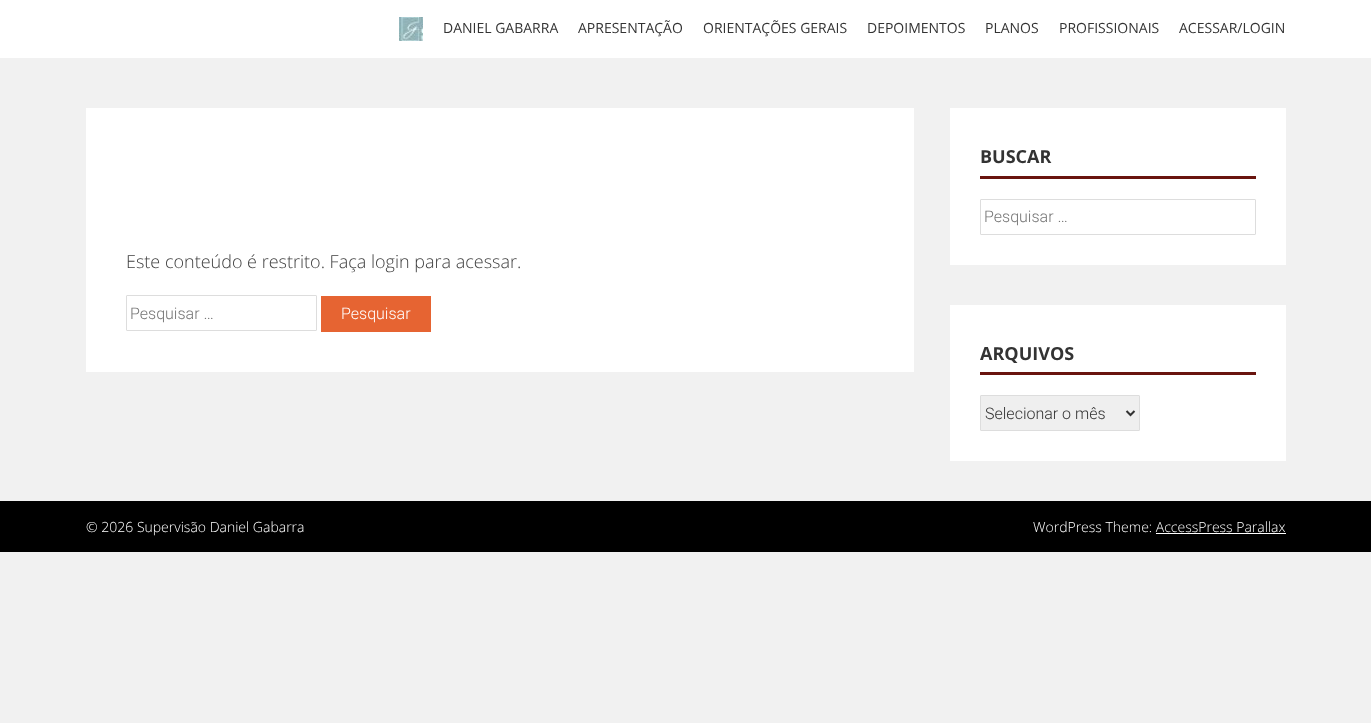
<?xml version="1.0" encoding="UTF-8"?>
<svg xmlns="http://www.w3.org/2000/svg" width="1371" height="723">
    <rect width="100%" height="100%" fill="#F1F1F1"/>
    <rect x="0" y="0" width="1371" height="58" fill="#FFFFFF"/>
    <image x="399" y="17" width="24" height="24" href="img_01.png"/>
    <text x="443" y="33" font-family="Open Sans" font-size="14" fill="#333333">DANIEL GABARRA</text>
    <text x="578" y="33" font-family="Open Sans" font-size="14" fill="#333333">APRESENTAÇÃO</text>
    <text x="703" y="33" font-family="Open Sans" font-size="14" fill="#333333">ORIENTAÇÕES GERAIS</text>
    <text x="867" y="33" font-family="Open Sans" font-size="14" fill="#333333">DEPOIMENTOS</text>
    <text x="985" y="33" font-family="Open Sans" font-size="14" fill="#333333">PLANOS</text>
    <text x="1059" y="33" font-family="Open Sans" font-size="14" fill="#333333">PROFISSIONAIS</text>
    <text x="1179" y="33" font-family="Open Sans" font-size="14" fill="#333333">ACESSAR/LOGIN</text>
    <rect x="86" y="108" width="828" height="264" fill="#FFFFFF"/>
    <text x="126" y="268" font-family="Open Sans" font-size="18" font-weight="300" fill="#404040">Este conteúdo é restrito. Faça login para acessar.</text>
    <rect x="126.5" y="295.5" width="190" height="35" rx="0.5" fill="none" stroke="#DDDDDD"/>
    <text x="130" y="319" font-family="Roboto" font-size="16" font-weight="300" fill="#757575">Pesquisar …</text>
    <rect x="321" y="296" width="110" height="36" fill="#E66432"/>
    <text x="341" y="319" font-family="Roboto" font-size="16" font-weight="300" fill="#FFFFFF">Pesquisar</text>
    <rect x="950" y="108" width="336" height="157" fill="#FFFFFF"/>
    <rect x="980" y="176" width="276" height="3" fill="#69140F"/>
    <text x="980" y="163" font-family="Open Sans" font-size="18" font-weight="700" fill="#333333">BUSCAR</text>
    <rect x="980.5" y="199.5" width="275" height="35" rx="0.5" fill="none" stroke="#DDDDDD"/>
    <text x="984" y="222" font-family="Roboto" font-size="16" font-weight="300" fill="#757575">Pesquisar …</text>
    <rect x="950" y="305" width="336" height="156" fill="#FFFFFF"/>
    <rect x="980" y="372" width="276" height="3" fill="#69140F"/>
    <text x="980" y="360" font-family="Open Sans" font-size="18" font-weight="700" fill="#333333">ARQUIVOS</text>
    <rect x="980.5" y="395.5" width="159" height="35" rx="0.5" fill="#EFEFEF" stroke="#DDDDDD"/>
    <path d="M 1126.5 411 L 1130.5 415 L 1134.5 411" fill="none" stroke="#333333" stroke-width="2"/>
    <text x="985" y="419" font-family="Roboto" font-size="16" font-weight="300" fill="#333333">Selecionar o mês</text>
    <rect x="0" y="501" width="1371" height="51" fill="#000000"/>
    <text x="86" y="532" font-family="Open Sans" font-size="14" font-weight="300" fill="#FFFFFF">© 2026 Supervisão Daniel Gabarra</text>
    <text x="1033" y="532" font-family="Open Sans" font-size="14" font-weight="300" fill="#FFFFFF">WordPress Theme: AccessPress Parallax</text>
    <rect x="1156" y="533" width="130" height="1" fill="#FFFFFF"/>
</svg>
